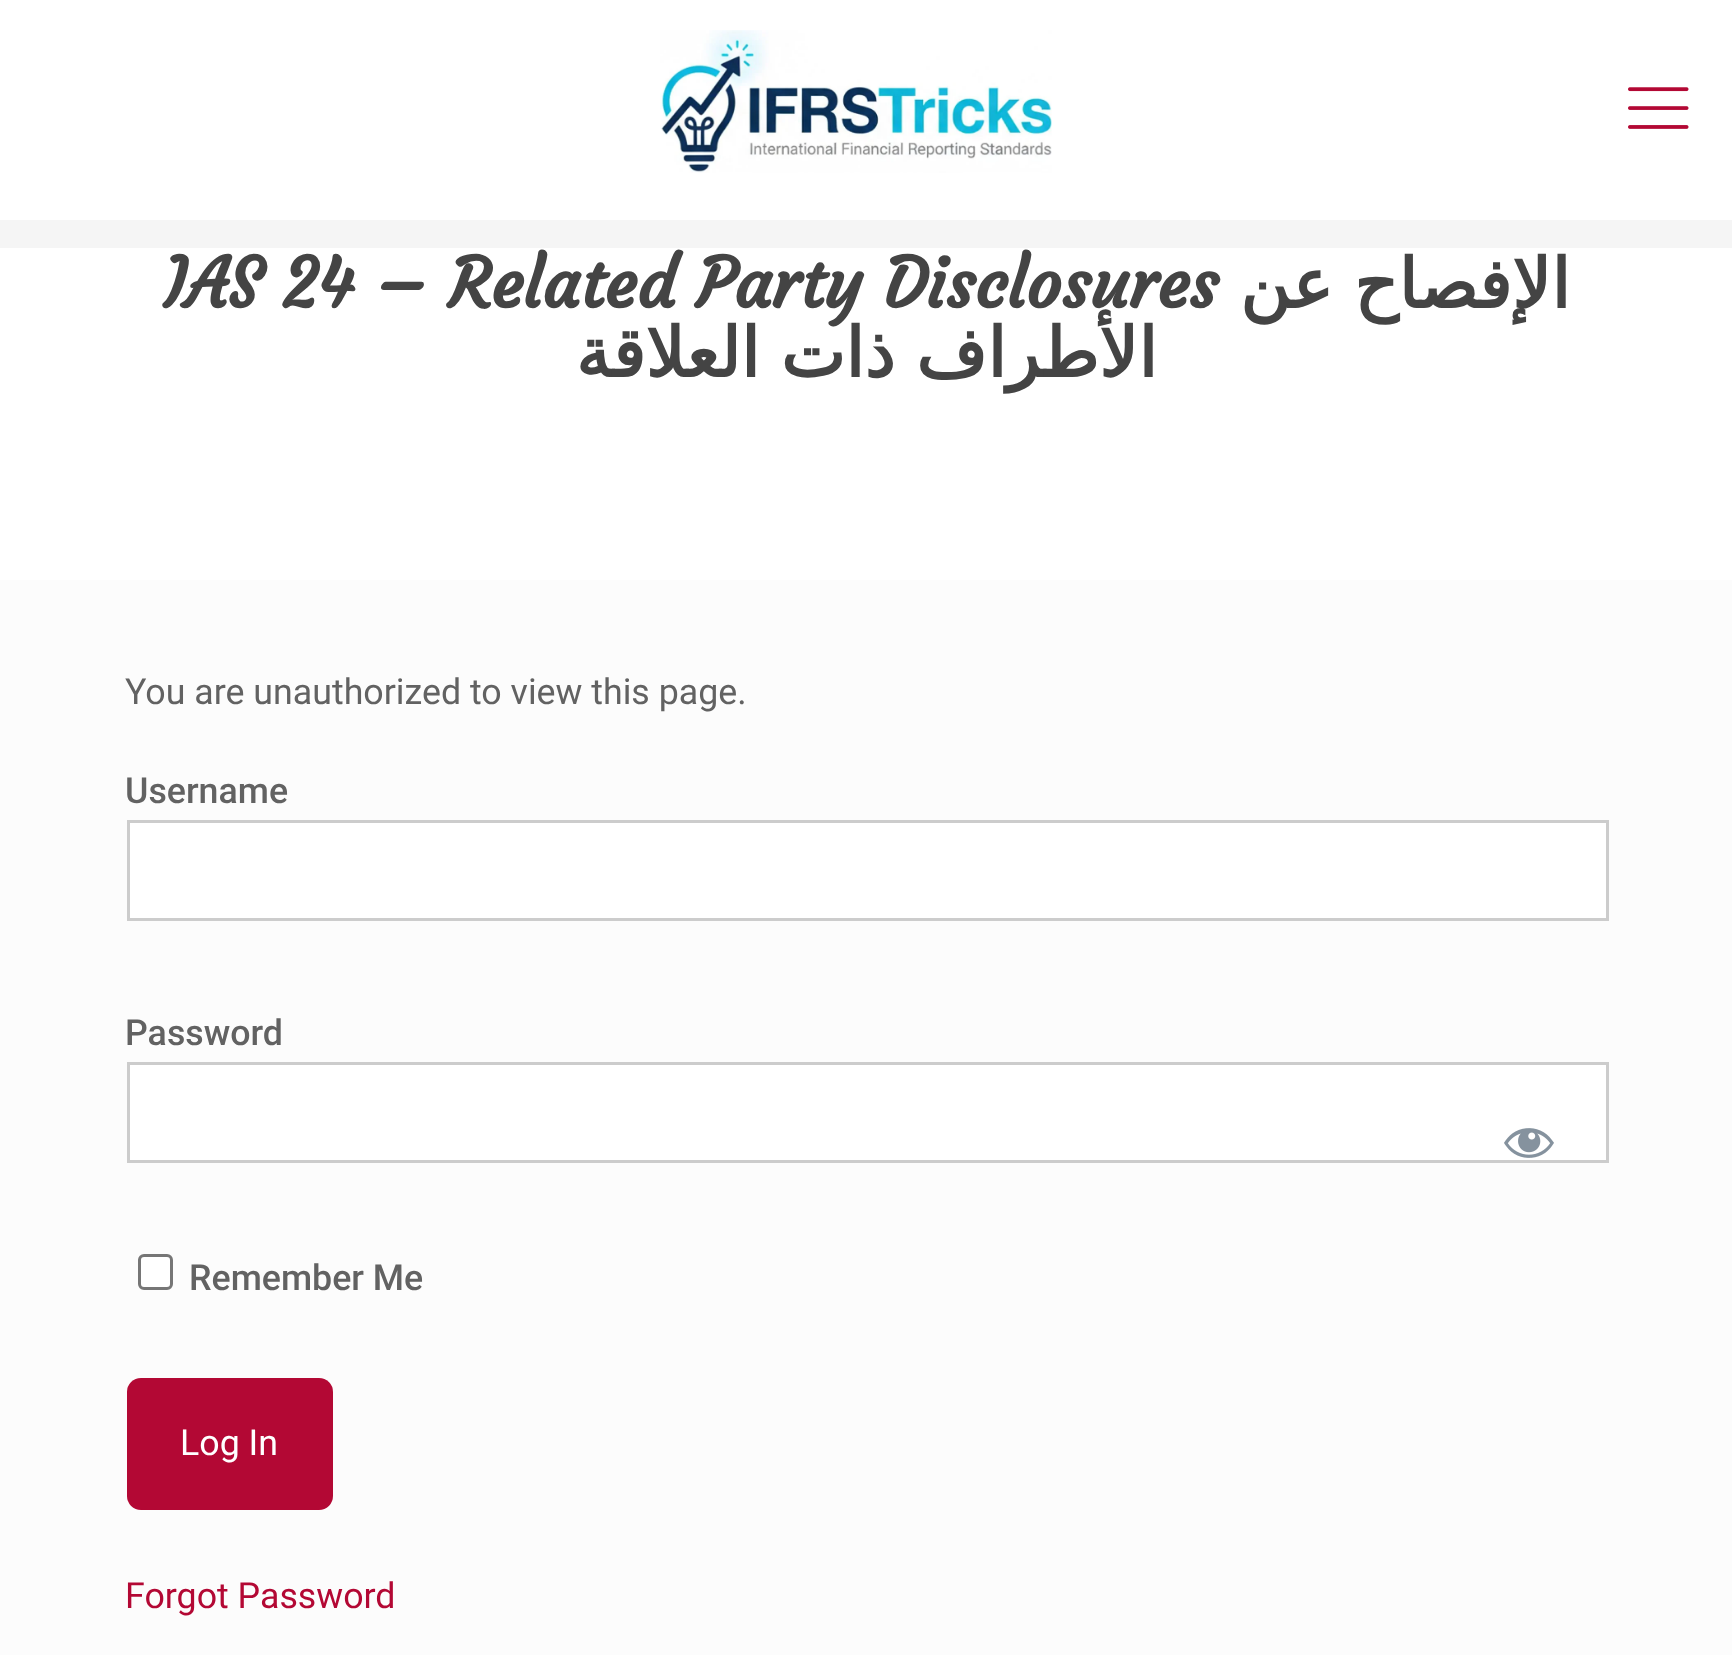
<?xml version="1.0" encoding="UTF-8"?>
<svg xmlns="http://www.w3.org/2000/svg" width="1732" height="1655">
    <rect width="100%" height="100%" fill="#FCFCFC"/>
    <rect x="0" y="0" width="1732" height="580" fill="#FFFFFF"/>
    <image x="660" y="30" width="392" height="143" href="img_01.png"/>
    <image x="1628" y="87" width="61" height="42" href="img_02.png"/>
    <rect x="0" y="220" width="1732" height="28" fill="#F5F5F5"/>
    <text x="163" y="308" font-family="Courgette" font-size="68.75" font-weight="700" fill="#444444">IAS 24 – Related Party Disclosures</text>
    <text x="1570" y="308" word-spacing="-1" font-family="DejaVu Sans" font-size="68.75" font-weight="700" direction="rtl" fill="#444444">الإفصاح عن</text>
    <text x="1157" y="377" word-spacing="-1" font-family="DejaVu Sans" font-size="68.75" font-weight="700" direction="rtl" fill="#444444">الأطراف ذات العلاقة</text>
    <text x="125" y="704" font-family="Roboto" font-size="35.75" fill="#626262">You are unauthorized to view this page.</text>
    <text x="125" y="803" font-family="Roboto" font-size="35.75" font-weight="500" fill="#626262">Username</text>
    <rect x="128.5" y="821.5" width="1479" height="98" fill="#FFFFFF" stroke="#CCCCCC" stroke-width="3"/>
    <text x="125" y="1045" font-family="Roboto" font-size="35.75" font-weight="500" fill="#626262">Password</text>
    <rect x="128.5" y="1063.5" width="1479" height="98" fill="#FFFFFF" stroke="#CCCCCC" stroke-width="3"/>
    <image x="1504" y="1128" width="50" height="30" href="img_03.png"/>
    <rect x="139.5" y="1255.5" width="32" height="33" rx="4.5" fill="#FFFFFF" stroke="#767676" stroke-width="3"/>
    <text x="189" y="1290" font-family="Roboto" font-size="35.75" font-weight="500" fill="#626262">Remember Me</text>
    <rect x="127" y="1378" width="206" height="132" rx="14" fill="#B30834"/>
    <text x="180" y="1455" font-family="Roboto" font-size="35.75" fill="#FFFFFF">Log In</text>
    <text x="125" y="1608" font-family="Roboto" font-size="35.75" fill="#B30834">Forgot Password</text>
</svg>
